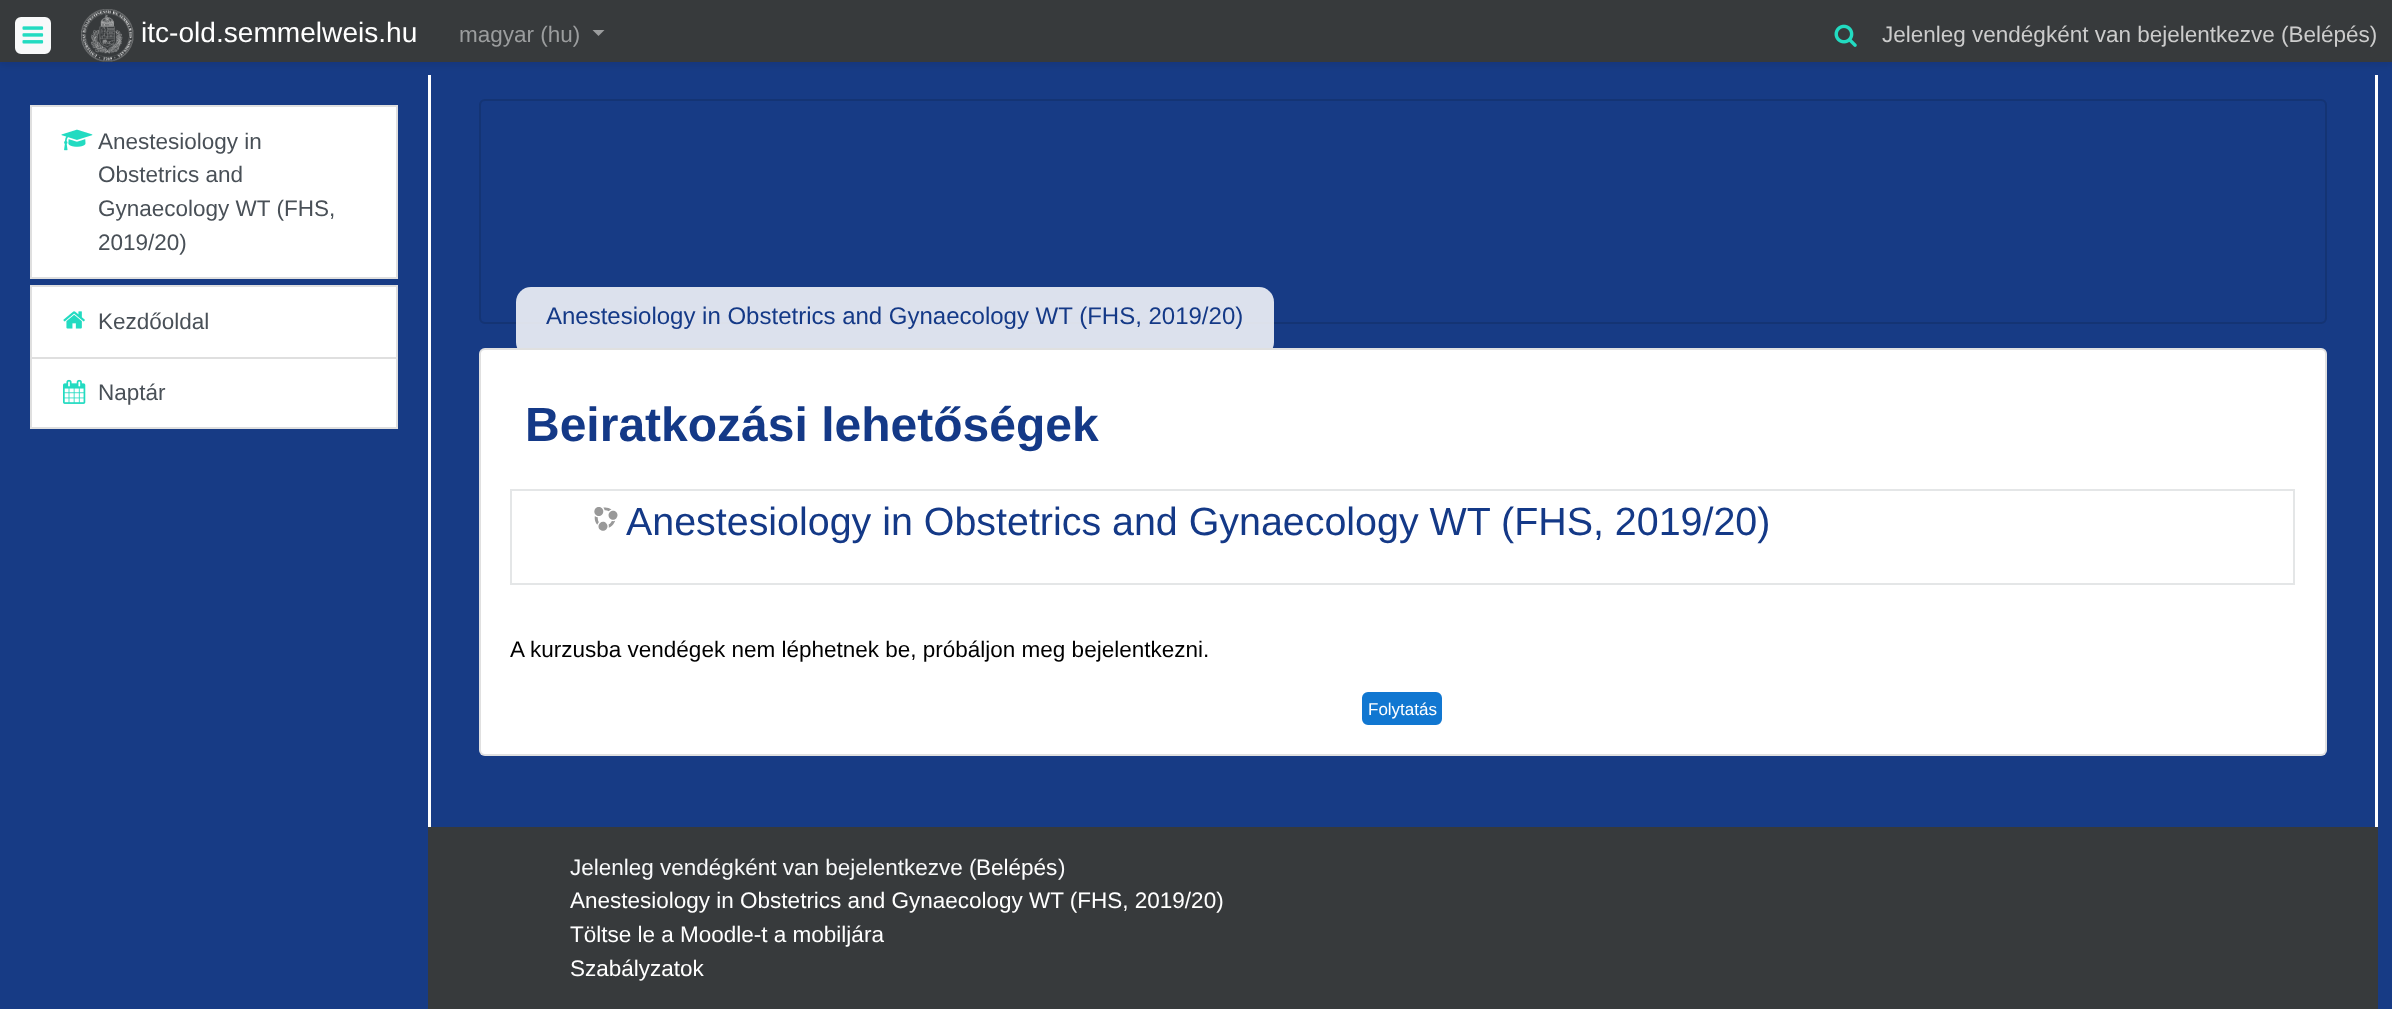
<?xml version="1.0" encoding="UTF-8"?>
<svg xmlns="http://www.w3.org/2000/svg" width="2392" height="1009">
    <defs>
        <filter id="blur1" x="-50%" y="-200%" width="200%" height="500%"><feGaussianBlur stdDeviation="3"/></filter>
    </defs>
    <rect width="100%" height="100%" fill="#173B85"/>
    <rect x="0" y="3" width="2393" height="62" fill="#000000" fill-opacity="0.08" filter="url(#blur1)"/>
    <rect x="0" y="0" width="2392" height="62" fill="#373A3C"/>
    <rect x="16" y="18" width="34" height="35" rx="5" fill="#F8F9FA" stroke="#F8F9FA" stroke-width="2"/>
    <image x="22" y="26" width="22" height="18" href="img_01.png"/>
    <image x="81" y="9" width="53" height="53" href="img_02.png"/>
    <text x="141" y="42" font-family="Liberation Sans" font-size="28.1" fill="#FFFFFF">itc-old.semmelweis.hu</text>
    <text x="459" y="42" font-family="Liberation Sans" font-size="22.5" fill="#9B9D9E">magyar (hu)</text>
    <path d="M 592.5 30 H 604.5 L 598.5 36 Z" fill="#9B9D9E"/>
    <image x="1834" y="24" width="23" height="23" href="img_03.png"/>
    <text x="1882" y="42" font-family="Liberation Sans" font-size="22.5" fill="#CCCCCC">Jelenleg vendégként van bejelentkezve (Belépés)</text>
    <rect x="31" y="106" width="366" height="172" fill="#FFFFFF" stroke="#DFDFDF" stroke-width="2"/>
    <image x="61" y="129" width="32" height="22" href="img_04.png"/>
    <text font-family="Liberation Sans" font-size="22.5" fill="#495057">
        <tspan x="98" y="149">Anestesiology in</tspan>
        <tspan x="98" y="182">Obstetrics and</tspan>
        <tspan x="98" y="216">Gynaecology WT (FHS,</tspan>
        <tspan x="98" y="250">2019/20)</tspan>
    </text>
    <rect x="31" y="286" width="366" height="72" fill="#FFFFFF" stroke="#DFDFDF" stroke-width="2"/>
    <image x="63" y="311" width="22" height="18" href="img_05.png"/>
    <text x="98" y="329" font-family="Liberation Sans" font-size="22.5" fill="#495057">Kezdőoldal</text>
    <rect x="31" y="358" width="366" height="70" fill="#FFFFFF" stroke="#DFDFDF" stroke-width="2"/>
    <image x="63" y="379" width="23" height="25" href="img_06.png"/>
    <text x="98" y="400" font-family="Liberation Sans" font-size="22.5" fill="#495057">Naptár</text>
    <rect x="2375" y="75" width="3" height="752" fill="#FFFFFF"/>
    <rect x="428" y="75" width="3" height="752" fill="#FFFFFF"/>
    <rect x="480" y="100" width="1846" height="223" rx="5" fill="none" stroke="#143474" stroke-width="2"/>
    <rect x="516" y="287" width="758" height="70" rx="15" fill="#FFFFFF" fill-opacity="0.85"/>
    <text x="546" y="324" font-family="Liberation Sans" font-size="24" fill="#143987">Anestesiology in Obstetrics and Gynaecology WT (FHS, 2019/20)</text>
    <rect x="479" y="348" width="1848" height="408" rx="6" fill="#FFFFFF"/>
    <rect x="480" y="349" width="1846" height="406" rx="5" fill="none" stroke="#000000" stroke-opacity="0.12" stroke-width="2"/>
    <text x="525" y="441" font-family="Liberation Sans" font-size="48" font-weight="700" fill="#143987">Beiratkozási lehetőségek</text>
    <rect x="511" y="490" width="1783" height="94" fill="none" stroke="#E4E6E7" stroke-width="2"/>
    <image x="594" y="507" width="24" height="24" href="img_07.png"/>
    <text x="626" y="535" font-family="Liberation Sans" font-size="39.4" fill="#143987">Anestesiology in Obstetrics and Gynaecology WT (FHS, 2019/20)</text>
    <text x="510" y="657" font-family="Liberation Sans" font-size="22.5" fill="#000000">A kurzusba vendégek nem léphetnek be, próbáljon meg bejelentkezni.</text>
    <rect x="1363" y="693" width="78" height="31" rx="5" fill="#1177D1" stroke="#1177D1" stroke-width="2"/>
    <text x="1368" y="715" font-family="Liberation Sans" font-size="17" fill="#FFFFFF">Folytatás</text>
    <rect x="428" y="827" width="1950" height="182" fill="#373A3C"/>
    <text x="570" y="875" font-family="Liberation Sans" font-size="22.5" fill="#F8F9FA">Jelenleg vendégként van bejelentkezve (</text>
    <text x="976" y="875" font-family="Liberation Sans" font-size="22.5" fill="#FFFFFF">Belépés</text>
    <text x="1058" y="875" font-family="Liberation Sans" font-size="22.5" fill="#F8F9FA">)</text>
    <text font-family="Liberation Sans" font-size="22.5" fill="#FFFFFF">
        <tspan x="570" y="908">Anestesiology in Obstetrics and Gynaecology WT (FHS, 2019/20)</tspan>
        <tspan x="570" y="942">Töltse le a Moodle-t a mobiljára</tspan>
        <tspan x="570" y="976">Szabályzatok</tspan>
    </text>
</svg>
